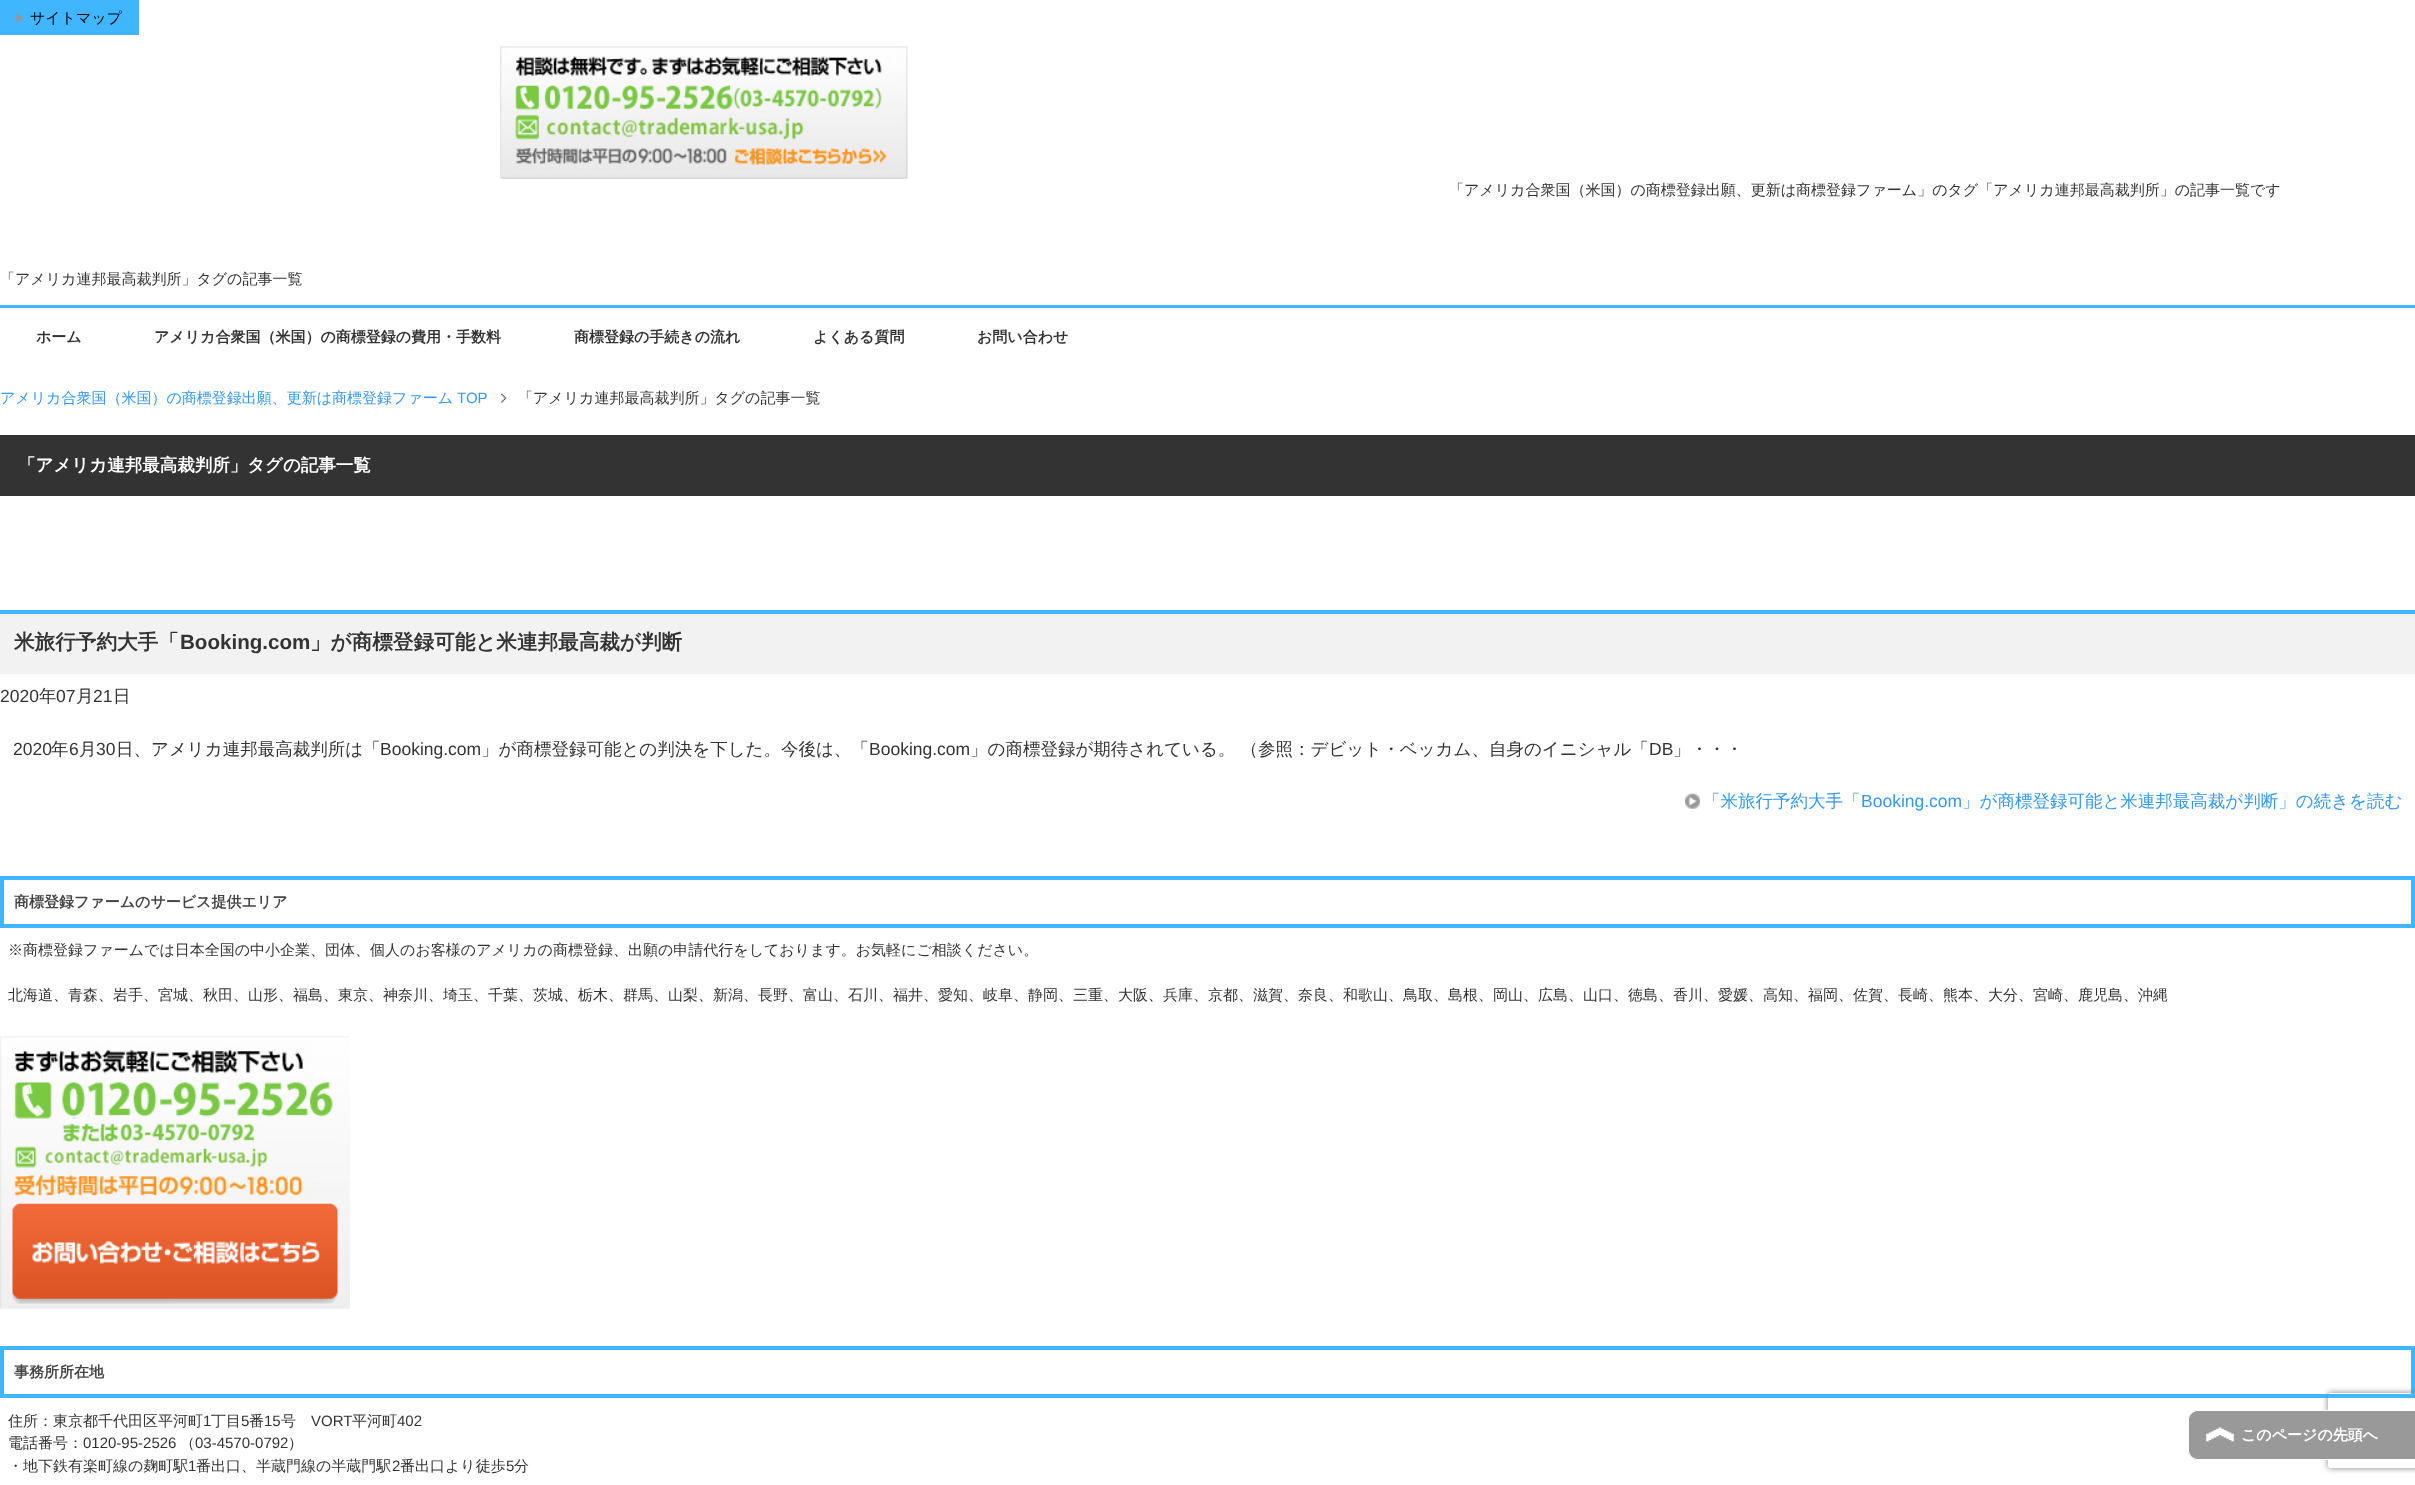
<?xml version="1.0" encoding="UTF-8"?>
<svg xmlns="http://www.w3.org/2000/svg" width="2415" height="1485">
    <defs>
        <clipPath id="clip1"><path d="M 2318 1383 H 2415 V 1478 H 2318 Z M 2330.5 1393 H 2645.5 C 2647 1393 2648 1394 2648 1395.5 V 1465.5 C 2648 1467 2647 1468 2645.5 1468 H 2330.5 C 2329 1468 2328 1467 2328 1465.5 V 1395.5 C 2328 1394 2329 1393 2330.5 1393 Z" clip-rule="evenodd"/></clipPath>
        <filter id="blur1" x="-50%" y="-200%" width="200%" height="500%"><feGaussianBlur stdDeviation="3"/></filter>
    </defs>
    <rect width="100%" height="100%" fill="#FFFFFF"/>
    <rect x="0" y="0" width="139" height="35" fill="#3FB6FF"/>
    <image x="15" y="13" width="9" height="10" href="img_01.png"/>
    <text x="30" y="23" font-family="WenQuanYi Zen Hei" font-size="15" font-weight="500" fill="#000000">サイトマップ</text>
    <image x="500" y="46" width="408" height="133" href="img_02.png"/>
    <text x="1449" y="195" font-family="WenQuanYi Zen Hei" font-size="15" font-weight="500" fill="#333333">「アメリカ合衆国（米国）の商標登録出願、更新は商標登録ファーム」のタグ「アメリカ連邦最高裁判所」の記事一覧です</text>
    <text x="0" y="284" font-family="WenQuanYi Zen Hei" font-size="15" font-weight="500" fill="#333333">「アメリカ連邦最高裁判所」タグの記事一覧</text>
    <rect x="0" y="305" width="2415" height="3" fill="#3FB6FF"/>
    <text x="36" y="342" font-family="WenQuanYi Zen Hei" font-size="15" font-weight="700" fill="#333333">ホーム</text>
    <text x="154" y="342" font-family="WenQuanYi Zen Hei" font-size="15" font-weight="700" fill="#333333">アメリカ合衆国（米国）の商標登録の費用・手数料</text>
    <text x="574" y="342" font-family="WenQuanYi Zen Hei" font-size="15" font-weight="700" fill="#333333">商標登録の手続きの流れ</text>
    <text x="813" y="342" font-family="WenQuanYi Zen Hei" font-size="15" font-weight="700" fill="#333333">よくある質問</text>
    <text x="977" y="342" font-family="WenQuanYi Zen Hei" font-size="15" font-weight="700" fill="#333333">お問い合わせ</text>
    <text x="0" y="403" font-family="WenQuanYi Zen Hei" font-size="15" font-weight="500" fill="#3399FF">アメリカ合衆国（米国）の商標登録出願、更新は商標登録ファーム</text>
    <text x="457" y="403" font-family="Liberation Sans" font-size="15" fill="#3399FF">TOP</text>
    <image x="501" y="393" width="6" height="10" href="img_03.png"/>
    <text x="518" y="403" font-family="WenQuanYi Zen Hei" font-size="15" font-weight="500" fill="#333333">「アメリカ連邦最高裁判所」タグの記事一覧</text>
    <rect x="0" y="435" width="2415" height="61" fill="#333333"/>
    <text x="18" y="471" font-family="WenQuanYi Zen Hei" font-size="17.5" font-weight="700" fill="#FFFFFF">「アメリカ連邦最高裁判所」タグの記事一覧</text>
    <rect x="0" y="614" width="2415" height="60" fill="#F2F2F2"/>
    <rect x="0" y="610" width="2415" height="4" fill="#3FB6FF"/>
    <text x="14" y="649" font-family="WenQuanYi Zen Hei" font-size="20.6" font-weight="700" fill="#333333">米旅行予約大手「</text>
    <text x="180" y="649" font-family="Liberation Sans" font-size="20.6" font-weight="700" fill="#333333">Booking.com</text>
    <text x="310" y="649" font-family="WenQuanYi Zen Hei" font-size="20.6" font-weight="700" fill="#333333">」が商標登録可能と米連邦最高裁が判断</text>
    <text x="0" y="702" font-family="Liberation Sans" font-size="17.5" fill="#333333">2020</text>
    <text x="39" y="702" font-family="WenQuanYi Zen Hei" font-size="17.5" font-weight="500" fill="#333333">年</text>
    <text x="56" y="702" font-family="Liberation Sans" font-size="17.5" fill="#333333">07</text>
    <text x="76" y="702" font-family="WenQuanYi Zen Hei" font-size="17.5" font-weight="500" fill="#333333">月</text>
    <text x="93" y="702" font-family="Liberation Sans" font-size="17.5" fill="#333333">21</text>
    <text x="113" y="702" font-family="WenQuanYi Zen Hei" font-size="17.5" font-weight="500" fill="#333333">日</text>
    <text x="13" y="755" font-family="Liberation Sans" font-size="17.5" fill="#333333">2020</text>
    <text x="51" y="755" font-family="WenQuanYi Zen Hei" font-size="17.5" font-weight="500" fill="#333333">年</text>
    <text x="69" y="755" font-family="Liberation Sans" font-size="17.5" fill="#333333">6</text>
    <text x="79" y="755" font-family="WenQuanYi Zen Hei" font-size="17.5" font-weight="500" fill="#333333">月</text>
    <text x="96" y="755" font-family="Liberation Sans" font-size="17.5" fill="#333333">30</text>
    <text x="116" y="755" font-family="WenQuanYi Zen Hei" font-size="17.5" font-weight="500" fill="#333333">日、アメリカ連邦最高裁判所は「</text>
    <text x="380" y="755" font-family="Liberation Sans" font-size="17.5" fill="#333333">Booking.com</text>
    <text x="481" y="755" font-family="WenQuanYi Zen Hei" font-size="17.5" font-weight="500" fill="#333333">」が商標登録可能との判決を下した。今後は、「</text>
    <text x="869" y="755" font-family="Liberation Sans" font-size="17.5" fill="#333333">Booking.com</text>
    <text x="970" y="755" font-family="WenQuanYi Zen Hei" font-size="17.5" font-weight="500" fill="#333333">」の商標登録が期待されている。 （参照：デビット・ベッカム、自身のイニシャル「</text>
    <text x="1649" y="755" font-family="Liberation Sans" font-size="17.5" fill="#333333">DB</text>
    <text x="1673" y="755" font-family="WenQuanYi Zen Hei" font-size="17.5" font-weight="500" fill="#333333">」・・・</text>
    <image x="1685" y="793" width="15" height="16" href="img_04.png"/>
    <text x="1703" y="807" font-family="WenQuanYi Zen Hei" font-size="17.5" font-weight="500" fill="#3399FF">「米旅行予約大手「</text>
    <text x="1861" y="807" font-family="Liberation Sans" font-size="17.5" fill="#3399FF">Booking.com</text>
    <text x="1962" y="807" font-family="WenQuanYi Zen Hei" font-size="17.5" font-weight="500" fill="#3399FF">」が商標登録可能と米連邦最高裁が判断」の続きを読む</text>
    <rect x="2" y="878" width="2411" height="48" fill="none" stroke="#3FB6FF" stroke-width="4"/>
    <text x="14" y="907" font-family="WenQuanYi Zen Hei" font-size="15" font-weight="700" fill="#454545">商標登録ファームのサービス提供エリア</text>
    <text x="8" y="955" font-family="WenQuanYi Zen Hei" font-size="15" font-weight="500" fill="#333333">※商標登録ファームでは日本全国の中小企業、団体、個人のお客様のアメリカの商標登録、出願の申請代行をしております。お気軽にご相談ください。</text>
    <text x="8" y="1000" font-family="WenQuanYi Zen Hei" font-size="15" font-weight="500" fill="#333333">北海道、青森、岩手、宮城、秋田、山形、福島、東京、神奈川、埼玉、千葉、茨城、栃木、群馬、山梨、新潟、長野、富山、石川、福井、愛知、岐阜、静岡、三重、大阪、兵庫、京都、滋賀、奈良、和歌山、鳥取、島根、岡山、広島、山口、徳島、香川、愛媛、高知、福岡、佐賀、長崎、熊本、大分、宮崎、鹿児島、沖縄</text>
    <image x="0" y="1036" width="350" height="273" href="img_05.png"/>
    <image x="12" y="1203" width="326" height="101" href="img_06.png"/>
    <rect x="2" y="1348" width="2411" height="48" fill="none" stroke="#3FB6FF" stroke-width="4"/>
    <text x="14" y="1377" font-family="WenQuanYi Zen Hei" font-size="15" font-weight="700" fill="#454545">事務所所在地</text>
    <text x="8" y="1426" font-family="WenQuanYi Zen Hei" font-size="15" font-weight="500" fill="#333333">住所：東京都千代田区平河町</text>
    <text x="203" y="1426" font-family="Liberation Sans" font-size="15" fill="#333333">1</text>
    <text x="211" y="1426" font-family="WenQuanYi Zen Hei" font-size="15" font-weight="500" fill="#333333">丁目</text>
    <text x="241" y="1426" font-family="Liberation Sans" font-size="15" fill="#333333">5</text>
    <text x="249" y="1426" font-family="WenQuanYi Zen Hei" font-size="15" font-weight="500" fill="#333333">番</text>
    <text x="264" y="1426" font-family="Liberation Sans" font-size="15" fill="#333333">15</text>
    <text x="281" y="1426" font-family="WenQuanYi Zen Hei" font-size="15" font-weight="500" fill="#333333">号</text>
    <text x="311" y="1426" font-family="Liberation Sans" font-size="15" fill="#333333">VORT</text>
    <text x="352" y="1426" font-family="WenQuanYi Zen Hei" font-size="15" font-weight="500" fill="#333333">平河町</text>
    <text x="397" y="1426" font-family="Liberation Sans" font-size="15" fill="#333333">402</text>
    <text x="8" y="1448" font-family="WenQuanYi Zen Hei" font-size="15" font-weight="500" fill="#333333">電話番号：</text>
    <text x="83" y="1448" font-family="Liberation Sans" font-size="15" fill="#333333">0120-95-2526</text>
    <text x="180" y="1448" font-family="WenQuanYi Zen Hei" font-size="15" font-weight="500" fill="#333333">（</text>
    <text x="195" y="1448" font-family="Liberation Sans" font-size="15" fill="#333333">03-4570-0792</text>
    <text x="288" y="1448" font-family="WenQuanYi Zen Hei" font-size="15" font-weight="500" fill="#333333">）</text>
    <text x="8" y="1471" font-family="WenQuanYi Zen Hei" font-size="15" font-weight="500" fill="#333333">・地下鉄有楽町線の麹町駅</text>
    <text x="188" y="1471" font-family="Liberation Sans" font-size="15" fill="#333333">1</text>
    <text x="196" y="1471" font-family="WenQuanYi Zen Hei" font-size="15" font-weight="500" fill="#333333">番出口、半蔵門線の半蔵門駅</text>
    <text x="392" y="1471" font-family="Liberation Sans" font-size="15" fill="#333333">2</text>
    <text x="400" y="1471" font-family="WenQuanYi Zen Hei" font-size="15" font-weight="500" fill="#333333">番出口より徒歩</text>
    <text x="506" y="1471" font-family="Liberation Sans" font-size="15" fill="#333333">5</text>
    <text x="514" y="1471" font-family="WenQuanYi Zen Hei" font-size="15" font-weight="500" fill="#333333">分</text>
    <g clip-path="url(#clip1)">
        <rect x="2328" y="1393" width="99" height="75" rx="2.5" fill="#808080" filter="url(#blur1)"/>
    </g>
    <path d="M 2198 1410 H 2415 V 1460 H 2198 C 2192.5 1460 2188 1455.5 2188 1450 V 1420 C 2188 1414.5 2192.5 1410 2198 1410 Z" fill="#999999"/>
    <image x="2206" y="1427" width="28" height="15" href="img_07.png"/>
    <path d="M 2198 1410 H 2415 V 1460 H 2198 C 2192 1460 2188 1456 2188 1450 V 1420 C 2188 1414 2192 1410 2198 1410 Z M 2198 1411 H 2415 V 1459 H 2198 C 2193 1459 2189 1455 2189 1450 V 1420 C 2189 1415 2193 1411 2198 1411 Z" fill="#FFFFFF" fill-rule="evenodd"/>
    <text x="2241" y="1440" font-family="WenQuanYi Zen Hei" font-size="15" font-weight="700" fill="#FFFFFF">このページの先頭へ</text>
</svg>
